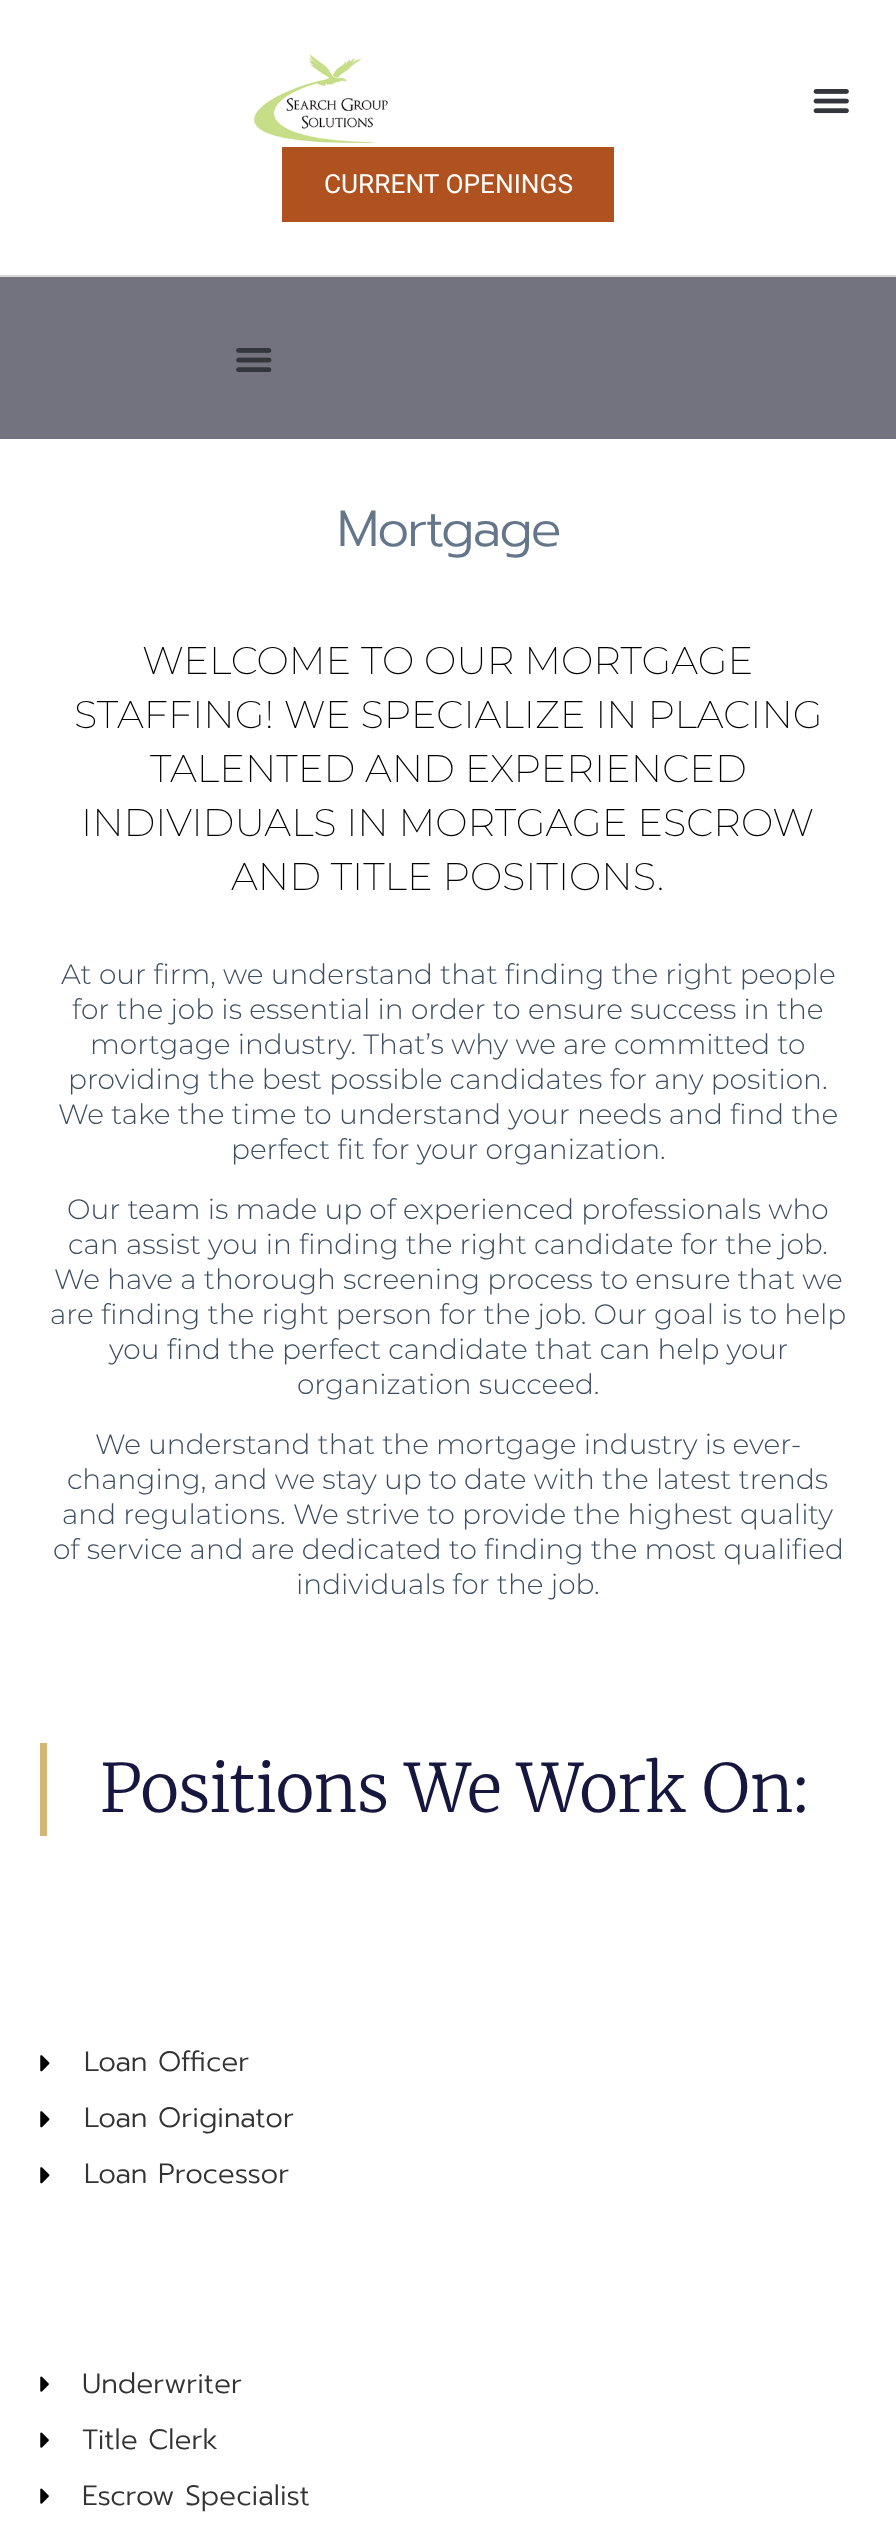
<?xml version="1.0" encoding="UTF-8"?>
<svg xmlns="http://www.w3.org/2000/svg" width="896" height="2524">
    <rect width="100%" height="100%" fill="#FFFFFF"/>
    <rect x="0" y="275" width="896" height="2" fill="#D8D8D8"/>
    <image x="253" y="54" width="135" height="90" href="img_01.png"/>
    <image x="813" y="89" width="36" height="25" href="img_02.png"/>
    <rect x="282" y="147" width="332" height="75" fill="#AF521F"/>
    <text x="324" y="193" font-family="Roboto" font-size="26.25" fill="#FFFFFF">CURRENT OPENINGS</text>
    <rect x="0" y="277" width="896" height="162" fill="#737380"/>
    <image x="236" y="348" width="36" height="25" href="img_03.png"/>
    <text x="337" y="546" font-family="Prompt" font-size="50.75" font-weight="300" letter-spacing="-1.75" fill="#65768B">Mortgage</text>
    <text x="142" y="674" font-family="Montserrat" font-size="38.5" font-weight="200" fill="#000000">WELCOME TO OUR MORTGAGE</text>
    <text x="74" y="728" font-family="Montserrat" font-size="38.5" font-weight="200" fill="#000000">STAFFING! WE SPECIALIZE IN PLACING</text>
    <text x="150" y="782" font-family="Montserrat" font-size="38.5" font-weight="200" fill="#000000">TALENTED AND EXPERIENCED</text>
    <text x="81" y="836" font-family="Montserrat" font-size="38.5" font-weight="200" fill="#000000">INDIVIDUALS IN MORTGAGE ESCROW</text>
    <text x="231" y="890" font-family="Montserrat" font-size="38.5" font-weight="200" fill="#000000">AND TITLE POSITIONS.</text>
    <text x="61" y="984" font-family="Montserrat" font-size="28" font-weight="300" fill="#3D4E60">At our firm, we understand that finding the right people</text>
    <text x="72" y="1019" font-family="Montserrat" font-size="28" font-weight="300" fill="#3D4E60">for the job is essential in order to ensure success in the</text>
    <text x="90" y="1054" font-family="Montserrat" font-size="28" font-weight="300" fill="#3D4E60">mortgage industry. That’s why we are committed to</text>
    <text x="68" y="1089" font-family="Montserrat" font-size="28" font-weight="300" fill="#3D4E60">providing the best possible candidates for any position.</text>
    <text x="58" y="1124" font-family="Montserrat" font-size="28" font-weight="300" fill="#3D4E60">We take the time to understand your needs and find the</text>
    <text x="231" y="1159" font-family="Montserrat" font-size="28" font-weight="300" fill="#3D4E60">perfect fit for your organization.</text>
    <text x="67" y="1219" font-family="Montserrat" font-size="28" font-weight="300" fill="#3D4E60">Our team is made up of experienced professionals who</text>
    <text x="68" y="1254" font-family="Montserrat" font-size="28" font-weight="300" fill="#3D4E60">can assist you in finding the right candidate for the job.</text>
    <text x="54" y="1289" font-family="Montserrat" font-size="28" font-weight="300" fill="#3D4E60">We have a thorough screening process to ensure that we</text>
    <text x="50" y="1324" font-family="Montserrat" font-size="28" font-weight="300" fill="#3D4E60">are finding the right person for the job. Our goal is to help</text>
    <text x="109" y="1359" font-family="Montserrat" font-size="28" font-weight="300" fill="#3D4E60">you find the perfect candidate that can help your</text>
    <text x="297" y="1394" font-family="Montserrat" font-size="28" font-weight="300" fill="#3D4E60">organization succeed.</text>
    <text x="95" y="1454" font-family="Montserrat" font-size="28" font-weight="300" fill="#3D4E60">We understand that the mortgage industry is ever-</text>
    <text x="67" y="1489" font-family="Montserrat" font-size="28" font-weight="300" fill="#3D4E60">changing, and we stay up to date with the latest trends</text>
    <text x="62" y="1524" font-family="Montserrat" font-size="28" font-weight="300" fill="#3D4E60">and regulations. We strive to provide the highest quality</text>
    <text x="53" y="1559" font-family="Montserrat" font-size="28" font-weight="300" fill="#3D4E60">of service and are dedicated to finding the most qualified</text>
    <text x="296" y="1594" font-family="Montserrat" font-size="28" font-weight="300" fill="#3D4E60">individuals for the job.</text>
    <rect x="40" y="1743" width="7" height="93" fill="#D3B574"/>
    <text x="100" y="1812" font-family="Merriweather" font-size="66.5" font-weight="300" fill="#16163F">Positions We Work On:</text>
    <image x="40" y="2055" width="10" height="17" href="img_04.png"/>
    <text x="84" y="2071" font-family="Prompt" font-size="28" font-weight="300" fill="#333333">Loan Officer</text>
    <image x="40" y="2111" width="10" height="17" href="img_04.png"/>
    <text x="84" y="2127" font-family="Prompt" font-size="28" font-weight="300" fill="#333333">Loan Originator</text>
    <image x="40" y="2167" width="10" height="17" href="img_04.png"/>
    <text x="84" y="2183" font-family="Prompt" font-size="28" font-weight="300" fill="#333333">Loan Processor</text>
    <image x="40" y="2376" width="9" height="16" href="img_05.png"/>
    <text x="82" y="2393" font-family="Prompt" font-size="28" font-weight="300" fill="#333333">Underwriter</text>
    <image x="40" y="2432" width="9" height="16" href="img_05.png"/>
    <text x="82" y="2449" font-family="Prompt" font-size="28" font-weight="300" fill="#333333">Title Clerk</text>
    <image x="40" y="2488" width="9" height="16" href="img_05.png"/>
    <text x="82" y="2505" font-family="Prompt" font-size="28" font-weight="300" fill="#333333">Escrow Specialist</text>
</svg>
